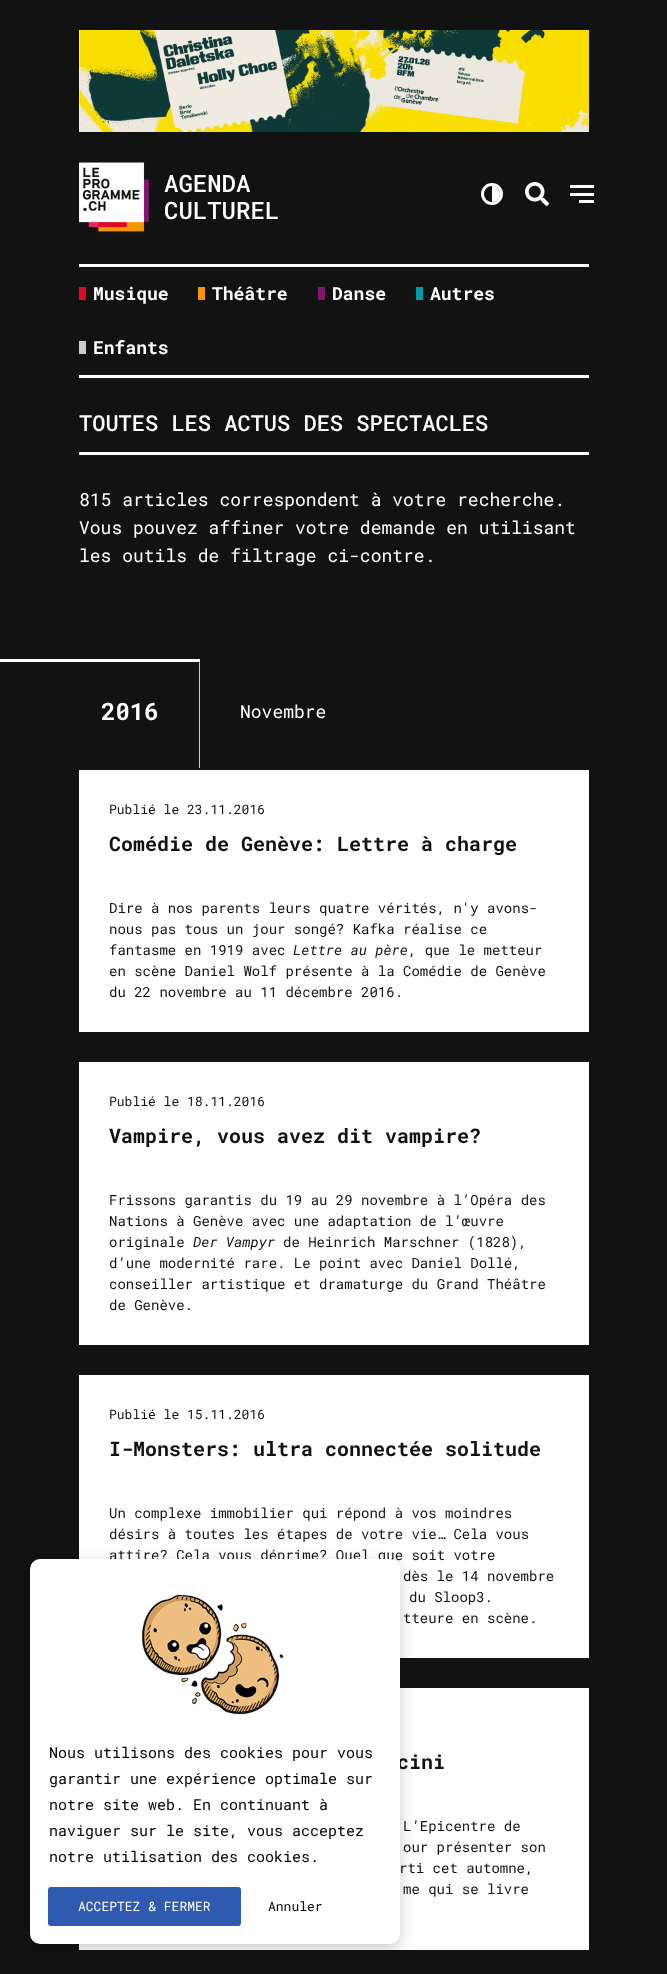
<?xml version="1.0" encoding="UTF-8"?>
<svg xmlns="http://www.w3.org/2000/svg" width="667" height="1974">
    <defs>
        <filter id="blur1" x="-50%" y="-200%" width="200%" height="500%"><feGaussianBlur stdDeviation="7.5"/></filter>
    </defs>
    <rect width="100%" height="100%" fill="#121212"/>
    <image x="79" y="30" width="510" height="102" href="img_01.png"/>
    <image x="79" y="162" width="70" height="70" href="img_02.png"/>
    <text font-family="Roboto Mono" font-size="24" font-weight="500" fill="#FFFFFF">
        <tspan x="164" y="192">AGENDA</tspan>
        <tspan x="164" y="219">CULTUREL</tspan>
    </text>
    <circle cx="492" cy="194" r="9.5" fill="none" stroke="#FFFFFF" stroke-width="3"/>
    <path d="M 492 186 C 496.5 186 500 189.5 500 194 C 500 198.5 496.5 202 492 202 Z" fill="#FFFFFF"/>
    <image x="525" y="182" width="24" height="24" href="img_03.png"/>
    <rect x="570" y="185" width="24" height="3" fill="#FFFFFF"/>
    <rect x="570" y="193" width="24" height="3" fill="#FFFFFF"/>
    <rect x="579" y="200" width="15" height="3" fill="#FFFFFF"/>
    <rect x="79" y="264" width="510" height="3" fill="#FFFFFF"/>
    <rect x="79" y="375" width="510" height="3" fill="#FFFFFF"/>
    <rect x="79" y="287" width="7" height="13" fill="#E30624"/>
    <text x="93" y="300" font-family="Roboto Mono" font-size="18" font-weight="700" fill="#FFFFFF">Musique</text>
    <rect x="198" y="287" width="7" height="13" fill="#F39700"/>
    <text x="212" y="300" font-family="Roboto Mono" font-size="18" font-weight="700" fill="#FFFFFF">Théâtre</text>
    <rect x="318" y="287" width="7" height="13" fill="#80176E"/>
    <text x="332" y="300" font-family="Roboto Mono" font-size="18" font-weight="700" fill="#FFFFFF">Danse</text>
    <rect x="416" y="287" width="7" height="13" fill="#009BA9"/>
    <text x="430" y="300" font-family="Roboto Mono" font-size="18" font-weight="700" fill="#FFFFFF">Autres</text>
    <rect x="79" y="341" width="7" height="13" fill="#CCCCCC"/>
    <text x="93" y="354" font-family="Roboto Mono" font-size="18" font-weight="700" fill="#FFFFFF">Enfants</text>
    <rect x="79" y="452" width="510" height="3" fill="#FFFFFF"/>
    <text x="79" y="431" font-family="Roboto Mono" font-size="22" font-weight="500" fill="#FFFFFF">TOUTES LES ACTUS DES SPECTACLES</text>
    <text font-family="Roboto Mono" font-size="18" fill="#FFFFFF">
        <tspan x="79" y="506">815 articles correspondent à votre recherche.</tspan>
        <tspan x="79" y="534">Vous pouvez affiner votre demande en utilisant</tspan>
        <tspan x="79" y="562">les outils de filtrage ci-contre.</tspan>
    </text>
    <text x="101" y="720" font-family="Roboto Mono" font-size="24" font-weight="700" fill="#FFFFFF">2016</text>
    <rect x="199" y="659" width="1" height="109" fill="#CCCCCC"/>
    <rect x="0" y="659" width="200" height="3" fill="#FFFFFF"/>
    <text x="240" y="718" font-family="Roboto Mono" font-size="18" fill="#FFFFFF">Novembre</text>
    <rect x="79" y="770" width="510" height="262" fill="#FFFFFF"/>
    <text x="109" y="814" font-family="Roboto Mono" font-size="13" fill="#121212">Publié le 23.11.2016</text>
    <text x="109" y="851" font-family="Roboto Mono" font-size="20" font-weight="700" fill="#121212">Comédie de Genève: Lettre à charge</text>
    <text font-family="Roboto Mono" font-size="14" fill="#121212">
        <tspan x="109" y="913">Dire à nos parents leurs quatre vérités, n'y avons-</tspan>
        <tspan x="109" y="934">nous pas tous un jour songé? Kafka réalise ce</tspan>
        <tspan x="109" y="955">fantasme en 1919 avec</tspan>
    </text>
    <text x="293" y="955" font-family="Roboto Mono" font-size="14" font-style="italic" fill="#121212">Lettre au père</text>
    <text x="408" y="955" font-family="Roboto Mono" font-size="14" fill="#121212">, que le metteur</text>
    <text font-family="Roboto Mono" font-size="14" fill="#121212">
        <tspan x="109" y="976">en scène Daniel Wolf présente à la Comédie de Genève</tspan>
        <tspan x="109" y="997">du 22 novembre au 11 décembre 2016.</tspan>
    </text>
    <rect x="79" y="1062" width="510" height="283" fill="#FFFFFF"/>
    <text x="109" y="1106" font-family="Roboto Mono" font-size="13" fill="#121212">Publié le 18.11.2016</text>
    <text x="109" y="1143" font-family="Roboto Mono" font-size="20" font-weight="700" fill="#121212">Vampire, vous avez dit vampire?</text>
    <text font-family="Roboto Mono" font-size="14" fill="#121212">
        <tspan x="109" y="1205">Frissons garantis du 19 au 29 novembre à l’Opéra des</tspan>
        <tspan x="109" y="1226">Nations à Genève avec une adaptation de l’œuvre</tspan>
        <tspan x="109" y="1247">originale</tspan>
    </text>
    <text x="193" y="1247" font-family="Roboto Mono" font-size="14" font-style="italic" fill="#121212">Der Vampyr</text>
    <text x="283" y="1247" font-family="Roboto Mono" font-size="14" fill="#121212">de Heinrich Marschner (1828),</text>
    <text font-family="Roboto Mono" font-size="14" fill="#121212">
        <tspan x="109" y="1268">d’une modernité rare. Le point avec Daniel Dollé,</tspan>
        <tspan x="109" y="1289">conseiller artistique et dramaturge du Grand Théâtre</tspan>
        <tspan x="109" y="1310">de Genève.</tspan>
    </text>
    <rect x="79" y="1375" width="510" height="283" fill="#FFFFFF"/>
    <text x="109" y="1419" font-family="Roboto Mono" font-size="13" fill="#121212">Publié le 15.11.2016</text>
    <text x="109" y="1456" font-family="Roboto Mono" font-size="20" font-weight="700" fill="#121212">I-Monsters: ultra connectée solitude</text>
    <text font-family="Roboto Mono" font-size="14" fill="#121212">
        <tspan x="109" y="1518">Un complexe immobilier qui répond à vos moindres</tspan>
        <tspan x="109" y="1539">désirs à toutes les étapes de votre vie… Cela vous</tspan>
        <tspan x="109" y="1560">attire? Cela vous déprime? Quel que soit votre</tspan>
    </text>
    <text x="403" y="1581" font-family="Roboto Mono" font-size="14" fill="#121212">dès le 14 novembre</text>
    <text x="409" y="1602" font-family="Roboto Mono" font-size="14" fill="#121212">du Sloop3.</text>
    <text x="403" y="1623" font-family="Roboto Mono" font-size="14" fill="#121212">tteure en scène.</text>
    <rect x="79" y="1688" width="510" height="262" fill="#FFFFFF"/>
    <text x="397" y="1769" font-family="Roboto Mono" font-size="20" font-weight="700" fill="#121212">cini</text>
    <text font-family="Roboto Mono" font-size="14" fill="#121212">
        <tspan x="403" y="1831">L’Epicentre de</tspan>
        <tspan x="403" y="1852">our présenter son</tspan>
    </text>
    <text x="399" y="1873" font-family="Roboto Mono" font-size="14" fill="#121212">rti cet automne,</text>
    <text x="403" y="1894" font-family="Roboto Mono" font-size="14" fill="#121212">me qui se livre</text>
    <rect x="30" y="1564" width="370" height="385" rx="10" fill="#000000" fill-opacity="0.2" filter="url(#blur1)"/>
    <rect x="30" y="1559" width="370" height="385" rx="10" fill="#FFFFFF"/>
    <image x="141" y="1594" width="143" height="121" href="img_04.png"/>
    <text font-family="Roboto Mono" font-size="15" fill="#000000">
        <tspan x="49" y="1758">Nous utilisons des cookies pour vous</tspan>
        <tspan x="49" y="1784">garantir une expérience optimale sur</tspan>
        <tspan x="49" y="1810">notre site web. En continuant à</tspan>
        <tspan x="49" y="1836">naviguer sur le site, vous acceptez</tspan>
        <tspan x="49" y="1862">notre utilisation des cookies.</tspan>
    </text>
    <rect x="48" y="1887" width="193" height="39" rx="3" fill="#2E5BAF"/>
    <text x="78" y="1911" font-family="Roboto Mono" font-size="13" fill="#FFFFFF">ACCEPTEZ &amp; FERMER</text>
    <text x="268" y="1911" font-family="Roboto Mono" font-size="13" fill="#000000">Annuler</text>
</svg>
